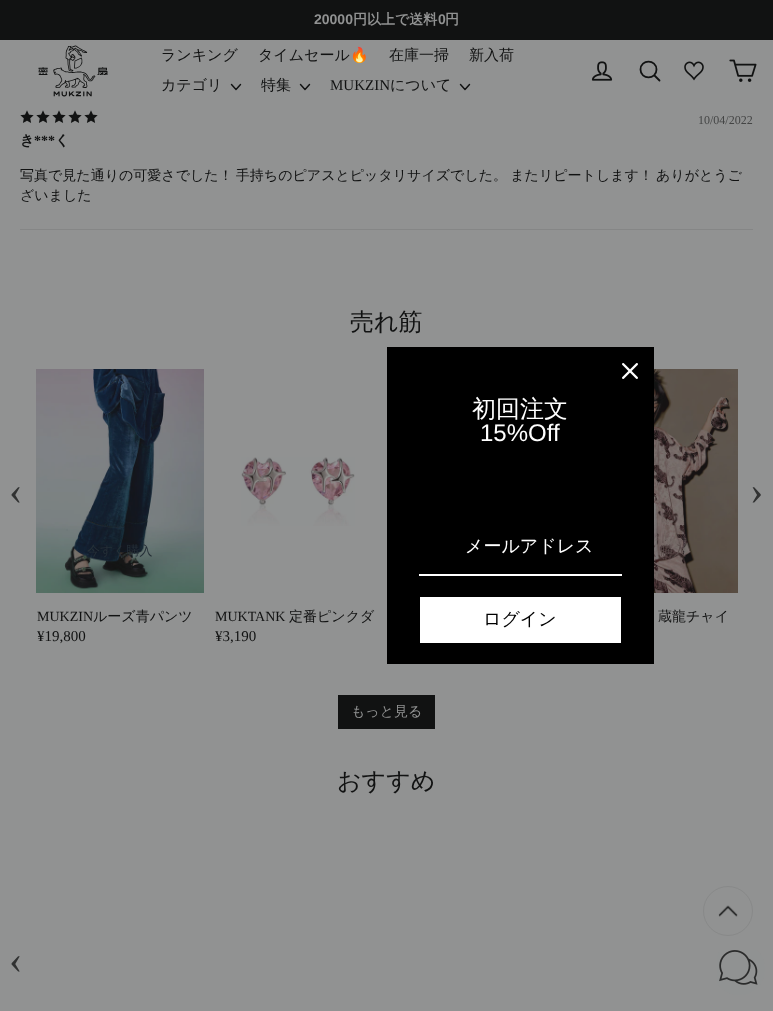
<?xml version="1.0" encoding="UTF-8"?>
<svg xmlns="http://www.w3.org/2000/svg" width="773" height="1011">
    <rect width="100%" height="100%" fill="#919292"/>
    <rect x="0" y="0" width="773" height="40" fill="#111212"/>
    <text x="314" y="24" font-family="Liberation Sans" font-size="14" font-weight="700" fill="#919292">20000</text>
    <text x="353" y="24" font-family="WenQuanYi Zen Hei" font-size="14" font-weight="700" fill="#919292">円以上で送料</text>
    <text x="438" y="24" font-family="Liberation Sans" font-size="14" font-weight="700" fill="#919292">0</text>
    <text x="445" y="24" font-family="WenQuanYi Zen Hei" font-size="14" font-weight="700" fill="#919292">円</text>
    <image x="38" y="45" width="70" height="52" href="img_01.png"/>
    <text x="161" y="60" font-family="WenQuanYi Zen Hei" font-size="15" font-weight="500" fill="#111212">ランキング</text>
    <text x="258" y="60" font-family="WenQuanYi Zen Hei" font-size="15" font-weight="500" fill="#111212">タイムセール</text>
    <text x="350" y="60" font-family="Noto Color Emoji" font-size="15" fill="#111212">🔥</text>
    <text x="389" y="60" font-family="WenQuanYi Zen Hei" font-size="15" font-weight="500" fill="#111212">在庫一掃</text>
    <text x="469" y="60" font-family="WenQuanYi Zen Hei" font-size="15" font-weight="500" fill="#111212">新入荷</text>
    <text x="161" y="90" font-family="WenQuanYi Zen Hei" font-size="15" font-weight="500" fill="#111212">カテゴリ</text>
    <path d="M 231.5 84.5 L 236 89.5 L 240.5 84.5" fill="none" stroke="#111212" stroke-width="1.4" stroke-linecap="round" stroke-linejoin="round"/>
    <text x="261" y="90" font-family="WenQuanYi Zen Hei" font-size="15" font-weight="500" fill="#111212">特集</text>
    <path d="M 300.5 84.5 L 305 89.5 L 309.5 84.5" fill="none" stroke="#111212" stroke-width="1.4" stroke-linecap="round" stroke-linejoin="round"/>
    <text x="330" y="90" font-family="Liberation Serif" font-size="15" fill="#111212">MUKZIN</text>
    <text x="390" y="90" font-family="WenQuanYi Zen Hei" font-size="15" font-weight="500" fill="#111212">について</text>
    <path d="M 460.5 84.5 L 465 89.5 L 469.5 84.5" fill="none" stroke="#111212" stroke-width="1.4" stroke-linecap="round" stroke-linejoin="round"/>
    <image x="591" y="61" width="22" height="20" href="img_02.png"/>
    <path d="M 656.5 69.5 C 656.5 80 640.5 80 640.5 69.5 C 640.5 59 656.5 59 656.5 69.5 Z M 659.5 80.5 L 654.5 75.5" fill="none" stroke="#111212" stroke-width="1.8" stroke-linecap="round" stroke-linejoin="round"/>
    <image x="684" y="61" width="20" height="20" href="img_03.png"/>
    <image x="729" y="59" width="28" height="23" href="img_04.png"/>
    <rect x="20" y="229" width="733" height="1" fill="#858686"/>
    <image x="20" y="110" width="14" height="13" href="img_05.png"/>
    <image x="36" y="110" width="14" height="13" href="img_05.png"/>
    <image x="52" y="110" width="14" height="13" href="img_05.png"/>
    <image x="68" y="110" width="14" height="13" href="img_05.png"/>
    <image x="84" y="110" width="14" height="13" href="img_05.png"/>
    <text x="698" y="124" font-family="Liberation Serif" font-size="12" fill="#444545">10/04/2022</text>
    <text x="20" y="145" font-family="WenQuanYi Zen Hei" font-size="14" font-weight="700" fill="#111212">き</text>
    <text x="34" y="145" font-family="Liberation Serif" font-size="14" font-weight="700" fill="#111212">***</text>
    <text x="55" y="145" font-family="WenQuanYi Zen Hei" font-size="14" font-weight="700" fill="#111212">く</text>
    <text font-family="WenQuanYi Zen Hei" font-size="14" font-weight="500" fill="#111212">
        <tspan x="20" y="180" word-spacing="-1">写真で見た通りの可愛さでした！ 手持ちのピアスとピッタリサイズでした。 またリピートします！ ありがとうご</tspan>
        <tspan x="20" y="200">ざいました</tspan>
    </text>
    <text x="350" y="330" font-family="WenQuanYi Zen Hei" font-size="24" font-weight="500" fill="#111212">売れ筋</text>
    <text x="9" y="504" font-family="Liberation Serif" font-size="40" fill="#313232">‹</text>
    <text x="750" y="504" font-family="Liberation Serif" font-size="40" fill="#313232">›</text>
    <image x="36" y="369" width="168" height="224" href="img_06.png"/>
    <text x="87" y="555" font-family="WenQuanYi Zen Hei" font-size="13" font-weight="500" fill="#252F37">今すく購入</text>
    <text x="37" y="621" font-family="Liberation Serif" font-size="14" fill="#111212">MUKZIN</text>
    <text x="93" y="621" font-family="WenQuanYi Zen Hei" font-size="14" font-weight="500" fill="#111212">ルーズ青パンツ</text>
    <text x="37" y="641" font-family="Liberation Serif" font-size="15" fill="#111212">¥19,800</text>
    <image x="654" y="369" width="84" height="224" href="img_07.png"/>
    <text x="647" y="555" font-family="WenQuanYi Zen Hei" font-size="13" font-weight="500" fill="#584B4A">く購入</text>
    <text x="658" y="621" font-family="WenQuanYi Zen Hei" font-size="14" font-weight="500" fill="#111212">蔵龍チャイ</text>
    <image x="241" y="457" width="114" height="69" href="img_08.png"/>
    <text x="215" y="621" font-family="Liberation Serif" font-size="14" fill="#111212">MUKTANK</text>
    <text x="289" y="621" font-family="WenQuanYi Zen Hei" font-size="14" font-weight="500" fill="#111212">定番ピンクダ</text>
    <text x="215" y="641" font-family="Liberation Serif" font-size="15" fill="#111212">¥3,190</text>
    <rect x="338" y="695" width="97" height="34" fill="#111212"/>
    <text x="351" y="716" font-family="WenQuanYi Zen Hei" font-size="14" font-weight="500" fill="#919292">もっと見る</text>
    <text x="337" y="789" font-family="WenQuanYi Zen Hei" font-size="24" font-weight="500" fill="#111212">おすすめ</text>
    <text x="9" y="973" font-family="Liberation Serif" font-size="40" fill="#313232">‹</text>
    <rect x="387" y="347" width="267" height="317" fill="#000000"/>
    <image x="622" y="363" width="16" height="16" href="img_09.png"/>
    <text x="472" y="417" font-family="WenQuanYi Zen Hei" font-size="24" font-weight="500" fill="#FFFFFF">初回注文</text>
    <text x="480" y="441" font-family="Liberation Sans" font-size="24" fill="#FFFFFF">15%Off</text>
    <rect x="419" y="574" width="203" height="2" fill="#FFFFFF"/>
    <text x="465" y="552" font-family="WenQuanYi Zen Hei" font-size="18" font-weight="500" fill="#FFFFFF">メールアドレス</text>
    <rect x="420" y="597" width="201" height="46" fill="#FFFFFF"/>
    <text x="483" y="625" font-family="WenQuanYi Zen Hei" font-size="18" font-weight="500" fill="#000000">ログイン</text>
    <image x="718" y="905" width="20" height="12" href="img_10.png"/>
    <circle cx="728" cy="911" r="24.5" fill="none" stroke="#888989"/>
    <image x="717" y="950" width="48" height="45" href="img_11.png"/>
</svg>
